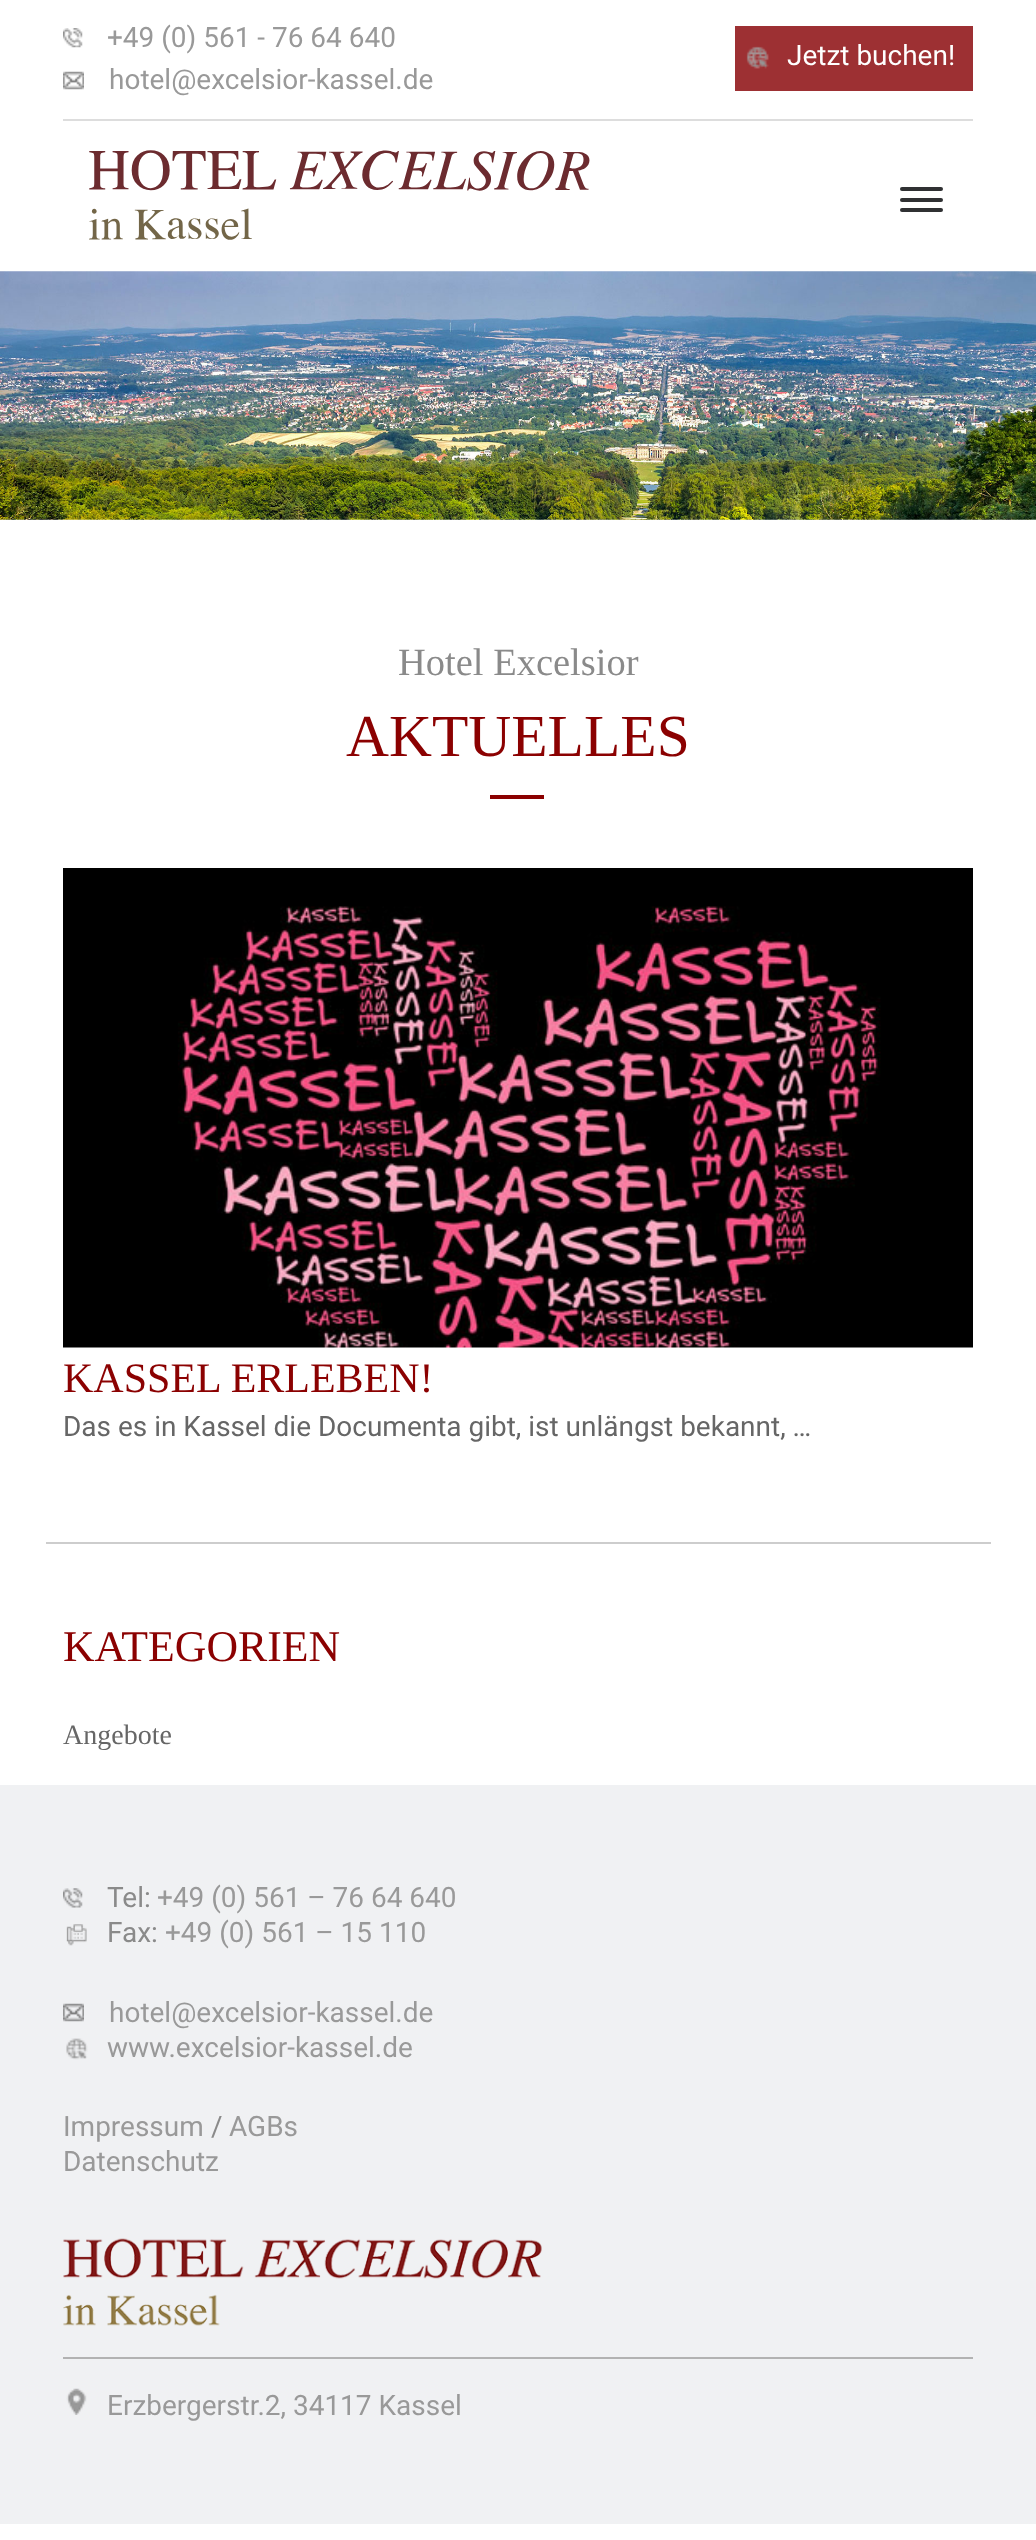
<?xml version="1.0" encoding="UTF-8"?>
<svg xmlns="http://www.w3.org/2000/svg" width="1036" height="2540">
    <rect width="100%" height="100%" fill="#FFFFFF"/>
    <rect x="63" y="119" width="910" height="2" fill="#DDDDDD"/>
    <image x="63" y="28" width="20" height="20" href="img_01.png"/>
    <text x="107" y="47" font-family="Roboto" font-size="28" fill="#999999">+49 (0) 561 - 76 64 640</text>
    <rect x="735" y="26" width="238" height="65" fill="#9D3033"/>
    <image x="746" y="46" width="23" height="23" href="img_02.png"/>
    <text x="787" y="65" font-family="Roboto" font-size="28" fill="#FFFFFF">Jetzt buchen!</text>
    <image x="63" y="71" width="21" height="19" href="img_03.png"/>
    <text x="109" y="89" font-family="Roboto" font-size="28" fill="#999999">hotel@excelsior-kassel.de</text>
    <image x="89" y="150" width="501" height="90" href="img_04.png"/>
    <rect x="900" y="187" width="43" height="4" rx="2" fill="#303133"/>
    <rect x="900" y="198" width="43" height="4" rx="2" fill="#303133"/>
    <rect x="900" y="208" width="43" height="4" rx="2" fill="#303133"/>
    <image x="0" y="271" width="1036" height="249" href="img_05.png"/>
    <text x="398" y="675" font-family="Liberation Serif" font-size="38.5" fill="#8A8A8A">Hotel Excelsior</text>
    <text x="346" y="756" font-family="Liberation Serif" font-size="59.5" fill="#8B0101">AKTUELLES</text>
    <rect x="490" y="795" width="54" height="4" fill="#8B0000"/>
    <rect x="46" y="1542" width="945" height="2" fill="#CDCDCD"/>
    <image x="63" y="868" width="910" height="480" href="img_06.png"/>
    <text x="63" y="1392" font-family="Liberation Serif" font-size="42" fill="#8B0101">KASSEL ERLEBEN!</text>
    <text x="63" y="1436" font-family="Roboto" font-size="28" fill="#666666">Das es in Kassel die Documenta gibt, ist unlängst bekannt, …</text>
    <text x="63" y="1661" font-family="Liberation Serif" font-size="43.75" fill="#8B0101">KATEGORIEN</text>
    <text x="63" y="1744" font-family="Liberation Serif" font-size="28" fill="#666666">Angebote</text>
    <rect x="0" y="1785" width="1036" height="739" fill="#F0F1F3"/>
    <image x="63" y="1888" width="20" height="20" href="img_07.png"/>
    <text x="107" y="1907" font-family="Roboto" font-size="28" fill="#8A8A8A">Tel:</text>
    <text x="157" y="1907" font-family="Roboto" font-size="28" fill="#999999">+49 (0) 561 – 76 64 640</text>
    <image x="66" y="1924" width="21" height="22" href="img_08.png"/>
    <text x="107" y="1942" font-family="Roboto" font-size="28" fill="#8A8A8A">Fax:</text>
    <text x="165" y="1942" font-family="Roboto" font-size="28" fill="#999999">+49 (0) 561 – 15 110</text>
    <image x="63" y="2003" width="21" height="19" href="img_09.png"/>
    <text x="109" y="2022" font-family="Roboto" font-size="28" fill="#999999">hotel@excelsior-kassel.de</text>
    <image x="66" y="2038" width="22" height="22" href="img_10.png"/>
    <text x="107" y="2057" font-family="Roboto" font-size="28" fill="#999999">www.excelsior-kassel.de</text>
    <text x="63" y="2136" font-family="Roboto" font-size="28" fill="#999999">Impressum</text>
    <text x="211" y="2136" font-family="Roboto" font-size="28" fill="#8A8A8A">/</text>
    <text x="229" y="2136" font-family="Roboto" font-size="28" fill="#999999">AGBs</text>
    <text x="63" y="2171" font-family="Roboto" font-size="28" fill="#999999">Datenschutz</text>
    <rect x="63" y="2357" width="910" height="2" fill="#B2B2B2"/>
    <image x="63" y="2238" width="479" height="88" href="img_11.png"/>
    <image x="66" y="2388" width="21" height="27" href="img_12.png"/>
    <text x="107" y="2415" font-family="Roboto" font-size="28" fill="#999999">Erzbergerstr.2, 34117 Kassel</text>
</svg>
